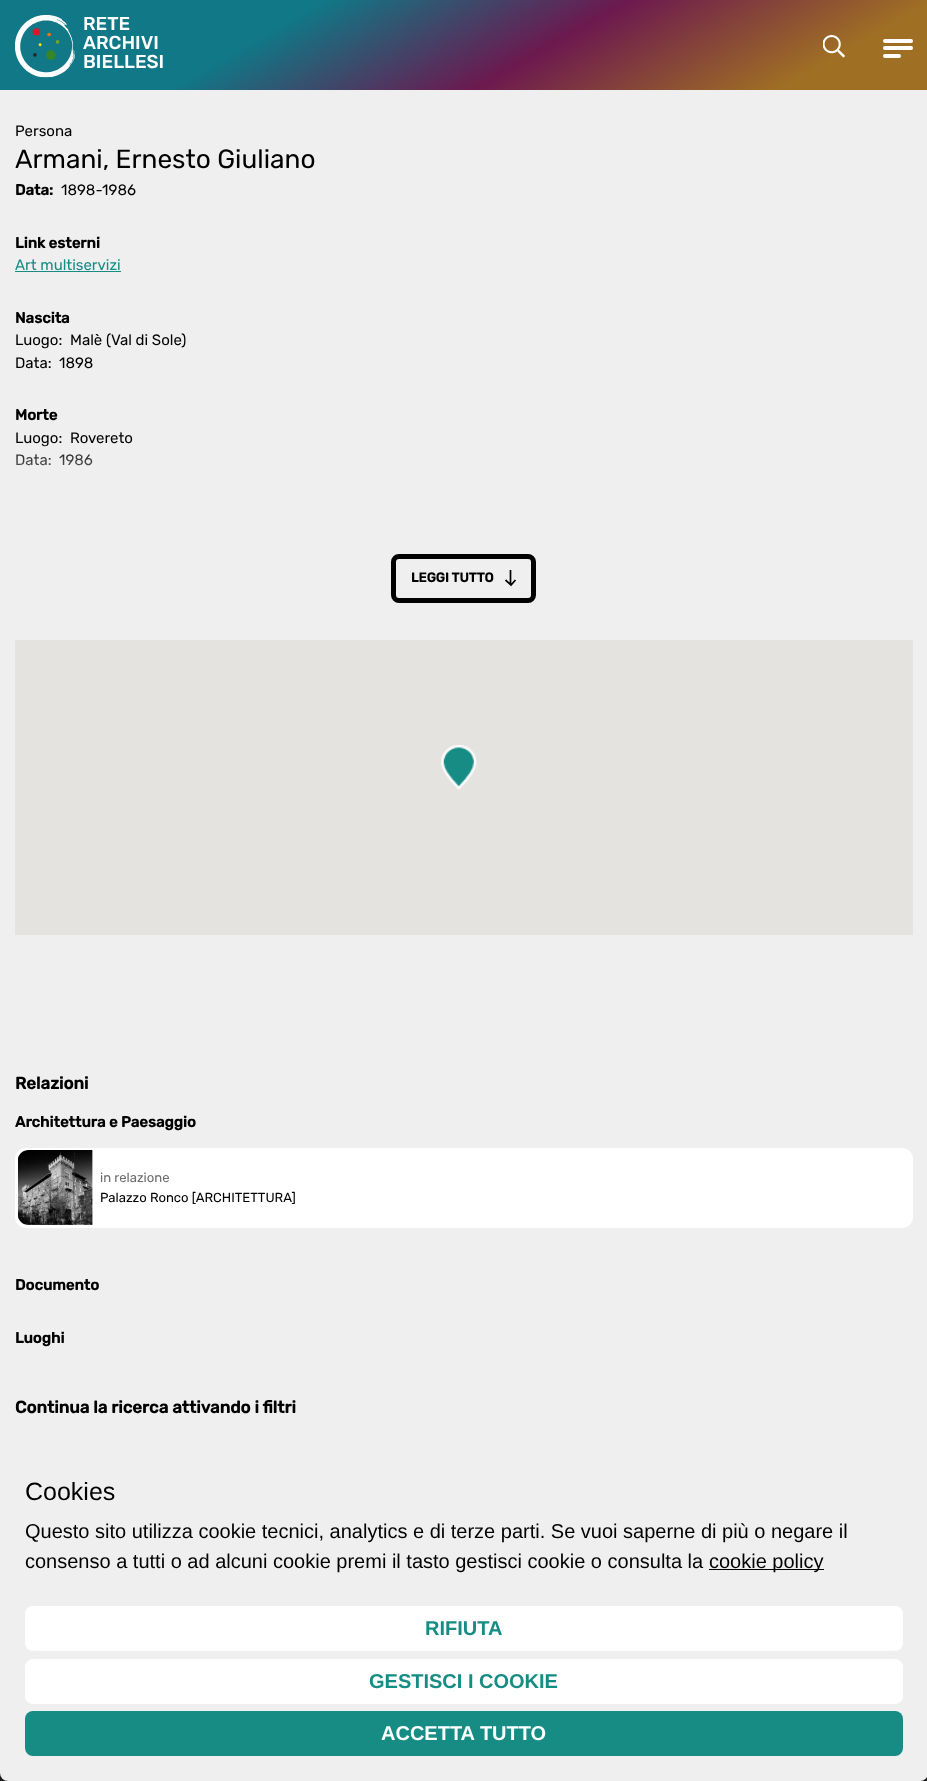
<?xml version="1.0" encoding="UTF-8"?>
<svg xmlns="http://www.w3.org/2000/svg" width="927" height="1781">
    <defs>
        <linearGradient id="g1" gradientUnits="userSpaceOnUse" x1="328" y1="-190" x2="599" y2="280"><stop offset="0.3" stop-color="#107886"/><stop offset="0.58" stop-color="#6C194F"/><stop offset="0.86" stop-color="#9F6F24"/></linearGradient>
        <linearGradient id="g2" gradientUnits="userSpaceOnUse" x1="464" y1="516" x2="464" y2="441"><stop offset="0" stop-color="#EFEFEF"/><stop offset="1" stop-color="#EFEFEF" stop-opacity="0"/></linearGradient>
    </defs>
    <rect width="100%" height="100%" fill="#EFEFEF"/>
    <rect x="0" y="0" width="927" height="90" fill="url(#g1)"/>
    <image x="15" y="15" width="60" height="63" href="img_01.png"/>
    <text font-family="Rubik" font-size="18.75" font-weight="500" fill="#FFFFFF">
        <tspan x="83" y="30">RETE</tspan>
        <tspan x="83" y="49">ARCHIVI</tspan>
        <tspan x="83" y="68">BIELLESI</tspan>
    </text>
    <image x="823" y="35" width="22" height="23" href="img_02.png"/>
    <rect x="883" y="39" width="30" height="4" rx="2" fill="#FFFFFF"/>
    <rect x="883" y="46" width="30" height="4" rx="2" fill="#FFFFFF"/>
    <rect x="883" y="54" width="18" height="4" rx="2" fill="#FFFFFF"/>
    <text x="15" y="136" font-family="Rubik" font-size="15" fill="#000000">Persona</text>
    <text x="15" y="168" font-family="Rubik" font-size="26.25" fill="#000000">Armani, Ernesto Giuliano</text>
    <text x="15" y="195" font-family="Rubik" font-size="15" font-weight="700" fill="#000000">Data:</text>
    <text x="61" y="195" font-family="Rubik" font-size="15" fill="#000000">1898-1986</text>
    <text x="15" y="248" font-family="Rubik" font-size="15" font-weight="700" fill="#000000">Link esterni</text>
    <text x="15" y="270" font-family="Rubik" font-size="15" fill="#168C84">Art multiservizi</text>
    <rect x="15" y="271" width="106" height="1" fill="#168C84"/>
    <text x="15" y="323" font-family="Rubik" font-size="15" font-weight="700" fill="#000000">Nascita</text>
    <text x="15" y="345" font-family="Rubik" font-size="15" fill="#000000">Luogo:</text>
    <text x="70" y="345" font-family="Rubik" font-size="15" fill="#000000">Malè (Val di Sole)</text>
    <text x="15" y="368" font-family="Rubik" font-size="15" fill="#000000">Data:</text>
    <text x="59" y="368" font-family="Rubik" font-size="15" fill="#000000">1898</text>
    <text x="15" y="420" font-family="Rubik" font-size="15" font-weight="700" fill="#000000">Morte</text>
    <text x="15" y="443" font-family="Rubik" font-size="15" fill="#000000">Luogo:</text>
    <text x="70" y="443" font-family="Rubik" font-size="15" fill="#000000">Rovereto</text>
    <text x="15" y="465" font-family="Rubik" font-size="15" fill="#000000">Data:</text>
    <text x="59" y="465" font-family="Rubik" font-size="15" fill="#000000">1986</text>
    <rect x="16" y="443" width="77" height="23" fill="url(#g2)"/>
    <rect x="393.5" y="556.5" width="140" height="44" rx="5.5" fill="none" stroke="#000000" stroke-width="5"/>
    <text x="411" y="582" font-family="Rubik" font-size="13.1" font-weight="700" fill="#000000">LEGGI TUTTO</text>
    <path d="M 510.5 570 V 585 M 515.5 580 L 511 585 L 505.5 580" fill="none" stroke="#000000" stroke-width="1.7"/>
    <rect x="15" y="640" width="898" height="295" fill="#E5E3DF"/>
    <image x="441" y="745" width="36" height="45" href="img_03.png"/>
    <text x="15" y="1089" font-family="Rubik" font-size="16.9" font-weight="700" fill="#000000">Relazioni</text>
    <text x="15" y="1127" font-family="Rubik" font-size="15" font-weight="700" fill="#000000">Architettura e Paesaggio</text>
    <rect x="16.5" y="1149.5" width="895" height="77" rx="9.5" fill="#FFFFFF" stroke="#FFFFFF" stroke-width="3"/>
    <image x="18" y="1150" width="75" height="75" href="img_04.png"/>
    <text x="100" y="1182" font-family="Rubik" font-size="13.1" fill="#6D6D6D">in relazione</text>
    <text x="100" y="1202" font-family="Rubik" font-size="13.1" fill="#000000">Palazzo Ronco [ARCHITETTURA]</text>
    <text x="15" y="1290" font-family="Rubik" font-size="15" font-weight="700" fill="#000000">Documento</text>
    <text x="15" y="1343" font-family="Rubik" font-size="15" font-weight="700" fill="#000000">Luoghi</text>
    <text x="15" y="1413" font-family="Rubik" font-size="16.9" font-weight="700" fill="#000000">Continua la ricerca attivando i filtri</text>
    <rect x="0" y="1773" width="927" height="8" fill="#1B1B1B"/>
    <rect x="0" y="1448" width="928" height="333" rx="8" fill="#EFEFEF"/>
    <text x="25" y="1500" font-family="Liberation Sans" font-size="25" fill="#000000">Cookies</text>
    <text font-family="Liberation Sans" font-size="20" fill="#000000">
        <tspan x="25" y="1538">Questo sito utilizza cookie tecnici, analytics e di terze parti. Se vuoi saperne di più o negare il</tspan>
        <tspan x="25" y="1568">consenso a tutti o ad alcuni cookie premi il tasto gestisci cookie o consulta la</tspan>
    </text>
    <rect x="709" y="1569" width="115" height="1" fill="#000000"/>
    <text x="709" y="1568" font-family="Liberation Sans" font-size="20" fill="#000000">cookie policy</text>
    <rect x="25" y="1606" width="878" height="45" rx="8" fill="#FFFFFF"/>
    <text x="425" y="1635" font-family="Liberation Sans" font-size="20" font-weight="700" fill="#168C84">RIFIUTA</text>
    <rect x="25" y="1659" width="878" height="45" rx="8" fill="#FFFFFF"/>
    <text x="369" y="1688" font-family="Liberation Sans" font-size="20" font-weight="700" fill="#168C84">GESTISCI I COOKIE</text>
    <rect x="25" y="1711" width="878" height="45" rx="8" fill="#168C84"/>
    <text x="381" y="1740" font-family="Liberation Sans" font-size="20" font-weight="700" fill="#FFFFFF">ACCETTA TUTTO</text>
</svg>
